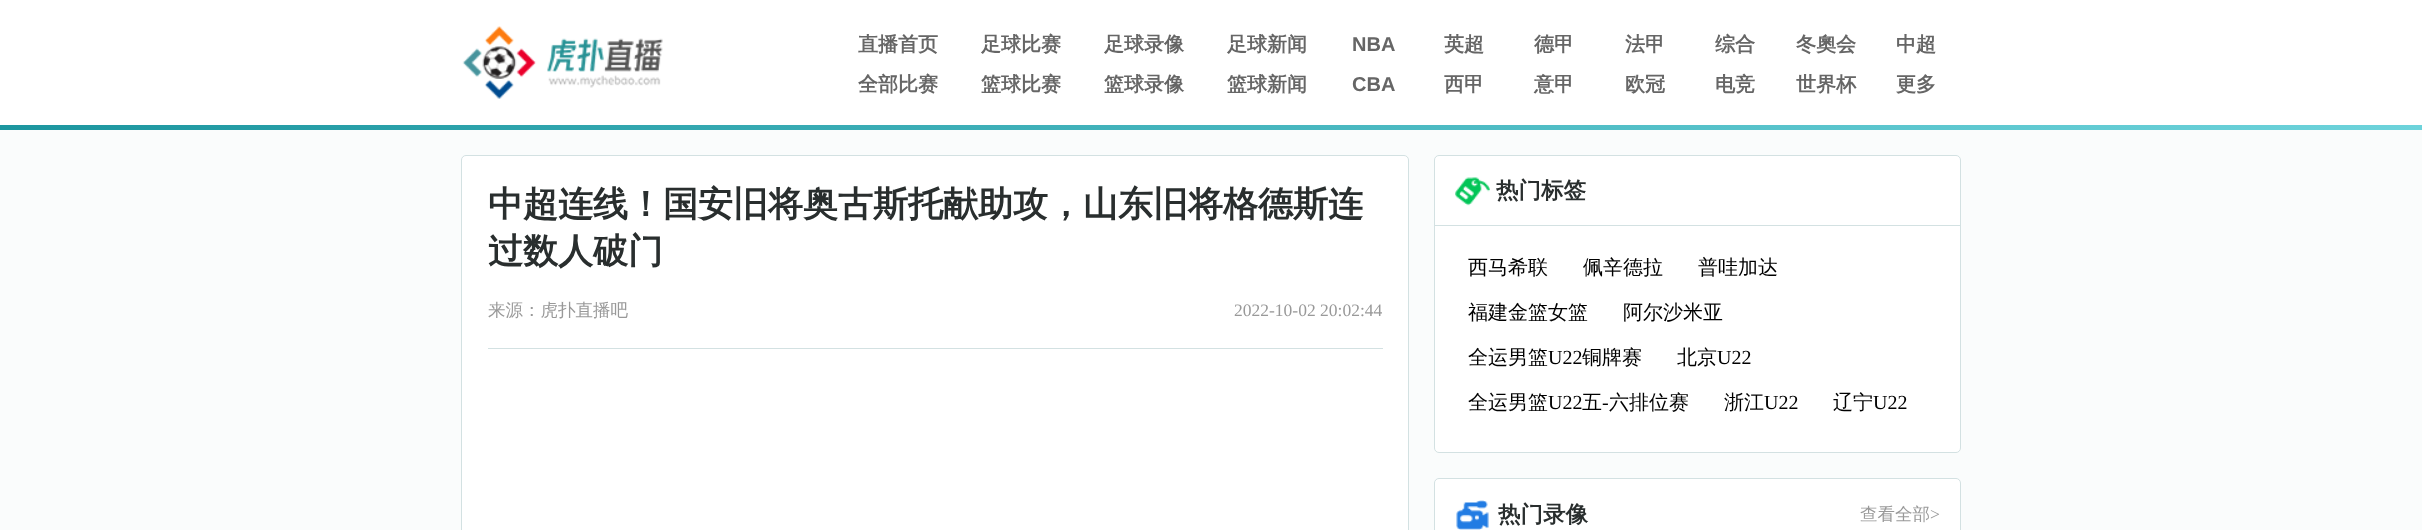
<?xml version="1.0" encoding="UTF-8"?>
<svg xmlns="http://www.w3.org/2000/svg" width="2422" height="530">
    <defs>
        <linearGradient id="g1" gradientUnits="userSpaceOnUse" x1="0" y1="128" x2="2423" y2="127"><stop offset="0" stop-color="#1C969F"/><stop offset="1" stop-color="#6DD3DB"/></linearGradient>
    </defs>
    <rect width="100%" height="100%" fill="#FAFCFC"/>
    <rect x="0" y="0" width="2422" height="125" fill="#FFFFFF"/>
    <image x="462" y="26" width="201" height="73" href="img_01.png"/>
    <text x="858" y="51" font-family="WenQuanYi Zen Hei" font-size="20" font-weight="700" fill="#666666">直播首页</text>
    <text x="981" y="51" font-family="WenQuanYi Zen Hei" font-size="20" font-weight="700" fill="#666666">足球比赛</text>
    <text x="1104" y="51" font-family="WenQuanYi Zen Hei" font-size="20" font-weight="700" fill="#666666">足球录像</text>
    <text x="1227" y="51" font-family="WenQuanYi Zen Hei" font-size="20" font-weight="700" fill="#666666">足球新闻</text>
    <text x="1352" y="51" font-family="Liberation Sans" font-size="20" font-weight="700" fill="#666666">NBA</text>
    <text x="1444" y="51" font-family="WenQuanYi Zen Hei" font-size="20" font-weight="700" fill="#666666">英超</text>
    <text x="1534" y="51" font-family="WenQuanYi Zen Hei" font-size="20" font-weight="700" fill="#666666">德甲</text>
    <text x="1625" y="51" font-family="WenQuanYi Zen Hei" font-size="20" font-weight="700" fill="#666666">法甲</text>
    <text x="1715" y="51" font-family="WenQuanYi Zen Hei" font-size="20" font-weight="700" fill="#666666">综合</text>
    <text x="1796" y="51" font-family="WenQuanYi Zen Hei" font-size="20" font-weight="700" fill="#666666">冬奧会</text>
    <text x="1896" y="51" font-family="WenQuanYi Zen Hei" font-size="20" font-weight="700" fill="#666666">中超</text>
    <text x="858" y="91" font-family="WenQuanYi Zen Hei" font-size="20" font-weight="700" fill="#666666">全部比赛</text>
    <text x="981" y="91" font-family="WenQuanYi Zen Hei" font-size="20" font-weight="700" fill="#666666">篮球比赛</text>
    <text x="1104" y="91" font-family="WenQuanYi Zen Hei" font-size="20" font-weight="700" fill="#666666">篮球录像</text>
    <text x="1227" y="91" font-family="WenQuanYi Zen Hei" font-size="20" font-weight="700" fill="#666666">篮球新闻</text>
    <text x="1352" y="91" font-family="Liberation Sans" font-size="20" font-weight="700" fill="#666666">CBA</text>
    <text x="1444" y="91" font-family="WenQuanYi Zen Hei" font-size="20" font-weight="700" fill="#666666">西甲</text>
    <text x="1534" y="91" font-family="WenQuanYi Zen Hei" font-size="20" font-weight="700" fill="#666666">意甲</text>
    <text x="1625" y="91" font-family="WenQuanYi Zen Hei" font-size="20" font-weight="700" fill="#666666">欧冠</text>
    <text x="1715" y="91" font-family="WenQuanYi Zen Hei" font-size="20" font-weight="700" fill="#666666">电竞</text>
    <text x="1796" y="91" font-family="WenQuanYi Zen Hei" font-size="20" font-weight="700" fill="#666666">世界杯</text>
    <text x="1896" y="91" font-family="WenQuanYi Zen Hei" font-size="20" font-weight="700" fill="#666666">更多</text>
    <rect x="0" y="125" width="2422" height="5" fill="url(#g1)"/>
    <rect x="461.5" y="155.5" width="947" height="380" rx="4.5" fill="#FFFFFF" stroke="#D3E1E2"/>
    <text font-family="WenQuanYi Zen Hei" font-size="35" font-weight="700" fill="#292E2E">
        <tspan x="488" y="216">中超连线！国安旧将奥古斯托献助攻，山东旧将格德斯连</tspan>
        <tspan x="488" y="263">过数人破门</tspan>
    </text>
    <rect x="488" y="348" width="895" height="1" fill="#D3E1E2"/>
    <text x="488" y="316" font-family="WenQuanYi Zen Hei" font-size="17.5" font-weight="500" fill="#999999">来源：虎扑直播吧</text>
    <text x="1234" y="316" font-family="Liberation Serif" font-size="17.5" fill="#999999">2022-10-02 20:02:44</text>
    <rect x="1434.5" y="155.5" width="526" height="297" rx="4.5" fill="#FFFFFF" stroke="#D3E1E2"/>
    <rect x="1435" y="225" width="525" height="1" fill="#D3E1E2"/>
    <image x="1455" y="177" width="35" height="29" href="img_02.png"/>
    <text x="1496" y="198" font-family="WenQuanYi Zen Hei" font-size="22.5" font-weight="700" fill="#292E2E">热门标签</text>
    <text x="1468" y="274" font-family="WenQuanYi Zen Hei" font-size="20" font-weight="500" fill="#000000">西马希联</text>
    <text x="1583" y="274" font-family="WenQuanYi Zen Hei" font-size="20" font-weight="500" fill="#000000">佩辛德拉</text>
    <text x="1698" y="274" font-family="WenQuanYi Zen Hei" font-size="20" font-weight="500" fill="#000000">普哇加达</text>
    <text x="1468" y="319" font-family="WenQuanYi Zen Hei" font-size="20" font-weight="500" fill="#000000">福建金篮女篮</text>
    <text x="1623" y="319" font-family="WenQuanYi Zen Hei" font-size="20" font-weight="500" fill="#000000">阿尔沙米亚</text>
    <text x="1468" y="364" font-family="WenQuanYi Zen Hei" font-size="20" font-weight="500" fill="#000000">全运男篮</text>
    <text x="1548" y="364" font-family="Liberation Serif" font-size="20" fill="#000000">U22</text>
    <text x="1582" y="364" font-family="WenQuanYi Zen Hei" font-size="20" font-weight="500" fill="#000000">铜牌赛</text>
    <text x="1677" y="364" font-family="WenQuanYi Zen Hei" font-size="20" font-weight="500" fill="#000000">北京</text>
    <text x="1717" y="364" font-family="Liberation Serif" font-size="20" fill="#000000">U22</text>
    <text x="1468" y="409" font-family="WenQuanYi Zen Hei" font-size="20" font-weight="500" fill="#000000">全运男篮</text>
    <text x="1548" y="409" font-family="Liberation Serif" font-size="20" fill="#000000">U22</text>
    <text x="1582" y="409" font-family="WenQuanYi Zen Hei" font-size="20" font-weight="500" fill="#000000">五</text>
    <text x="1602" y="409" font-family="Liberation Serif" font-size="20" fill="#000000">-</text>
    <text x="1609" y="409" font-family="WenQuanYi Zen Hei" font-size="20" font-weight="500" fill="#000000">六排位赛</text>
    <text x="1724" y="409" font-family="WenQuanYi Zen Hei" font-size="20" font-weight="500" fill="#000000">浙江</text>
    <text x="1764" y="409" font-family="Liberation Serif" font-size="20" fill="#000000">U22</text>
    <text x="1833" y="409" font-family="WenQuanYi Zen Hei" font-size="20" font-weight="500" fill="#000000">辽宁</text>
    <text x="1873" y="409" font-family="Liberation Serif" font-size="20" fill="#000000">U22</text>
    <rect x="1434.5" y="478.5" width="526" height="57" rx="4.5" fill="#FFFFFF" stroke="#D3E1E2"/>
    <image x="1456" y="500" width="33" height="30" href="img_03.png"/>
    <text x="1498" y="522" font-family="WenQuanYi Zen Hei" font-size="22.5" font-weight="700" fill="#292E2E">热门录像</text>
    <text x="1860" y="520" font-family="WenQuanYi Zen Hei" font-size="17.5" font-weight="500" fill="#999999">查看全部</text>
    <text x="1930" y="520" font-family="Liberation Serif" font-size="17.5" fill="#999999">&gt;</text>
</svg>
